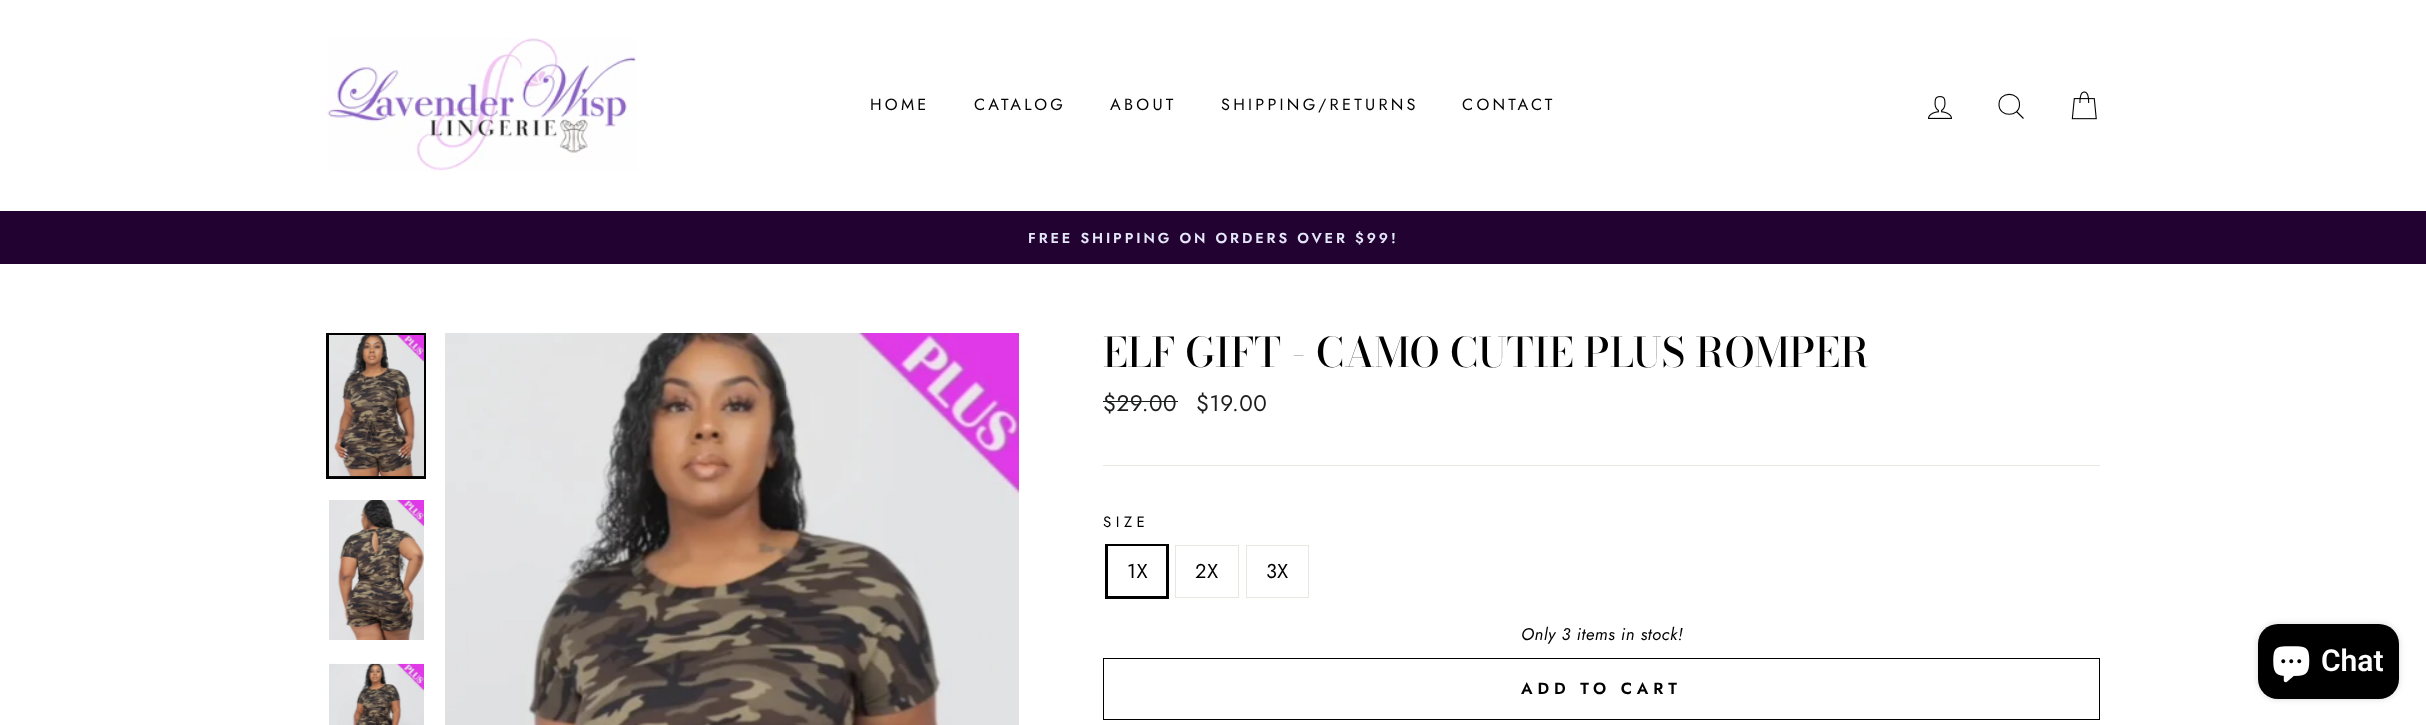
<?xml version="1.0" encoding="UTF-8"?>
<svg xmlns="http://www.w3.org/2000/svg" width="2426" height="725">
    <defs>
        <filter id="blur1" x="-50%" y="-200%" width="200%" height="500%"><feGaussianBlur stdDeviation="3"/></filter>
    </defs>
    <rect width="100%" height="100%" fill="#FFFFFF"/>
    <image x="326" y="38" width="311" height="133" href="img_01.png"/>
    <text x="870" y="110" font-family="Jost" font-size="16.25" letter-spacing="3.25" fill="#000000">HOME</text>
    <text x="974" y="110" font-family="Jost" font-size="16.25" letter-spacing="3.25" fill="#000000">CATALOG</text>
    <text x="1110" y="110" font-family="Jost" font-size="16.25" letter-spacing="3.25" fill="#000000">ABOUT</text>
    <text x="1221" y="110" font-family="Jost" font-size="16.25" letter-spacing="3.25" fill="#000000">SHIPPING/RETURNS</text>
    <text x="1462" y="110" font-family="Jost" font-size="16.25" letter-spacing="3.25" fill="#000000">CONTACT</text>
    <image x="1928" y="96" width="24" height="23" href="img_02.png"/>
    <path d="M 2019.5 104.5 C 2019.5 117.5 1999 117.5 1999 104.5 C 1999 91 2019.5 91 2019.5 104.5 Z M 2023.5 118.5 L 2016.5 111.5" fill="none" stroke="#000000" stroke-width="1.1"/>
    <image x="2071" y="91" width="26" height="29" href="img_03.png"/>
    <rect x="0" y="211" width="2426" height="53" fill="#210230"/>
    <text x="1028" y="243" font-family="Jost" font-size="14.45" font-weight="600" letter-spacing="2.9" fill="#E6E6FA">FREE SHIPPING ON ORDERS OVER $99!</text>
    <rect x="327.5" y="334.5" width="97" height="143" fill="none" stroke="#000000" stroke-width="3"/>
    <image x="329" y="335" width="95" height="142" href="img_04.png"/>
    <image x="329" y="500" width="95" height="140" href="img_05.png"/>
    <image x="329" y="663" width="95" height="62" href="img_06.png"/>
    <image x="445" y="333" width="574" height="392" href="img_07.png"/>
    <text x="1103" y="367" font-family="Bodoni Moda" font-size="40.8" font-weight="500" fill="#000000">ELF GIFT - CAMO CUTIE PLUS ROMPER</text>
    <text x="1103" y="411" font-family="Jost" font-size="22.5" letter-spacing="0.5" fill="#1C1D1D">$29.00</text>
    <rect x="1103" y="401" width="75" height="1" fill="#1C1D1D"/>
    <text x="1196" y="411" font-family="Jost" font-size="22.5" letter-spacing="0.5" fill="#1C1D1D">$19.00</text>
    <rect x="1103" y="465" width="997" height="1" fill="#E8E8E1"/>
    <text x="1103" y="527" font-family="Jost" font-size="15" letter-spacing="4.5" fill="#000000">SIZE</text>
    <rect x="1106.5" y="545.5" width="61" height="52" fill="none" stroke="#000000" stroke-width="3"/>
    <rect x="1108" y="546" width="58" height="1" fill="#FFFFFF"/>
    <text x="1127" y="578" font-family="Jost" font-size="20" letter-spacing="0.5" fill="#000000">1X</text>
    <rect x="1175.5" y="545.5" width="63" height="52" fill="none" stroke="#E8E8E1"/>
    <text x="1195" y="578" font-family="Jost" font-size="20" letter-spacing="0.5" fill="#000000">2X</text>
    <rect x="1246.5" y="545.5" width="62" height="52" fill="none" stroke="#E8E8E1"/>
    <text x="1266" y="578" font-family="Jost" font-size="20" letter-spacing="0.5" fill="#000000">3X</text>
    <text x="1521" y="640" font-family="Jost" font-size="17" font-style="italic" letter-spacing="0.5" fill="#000000">Only 3 items in stock!</text>
    <rect x="1103.5" y="658.5" width="996" height="61" fill="none" stroke="#000000"/>
    <text x="1521" y="694" font-family="Jost" font-size="16.25" font-weight="600" letter-spacing="4.9" fill="#000000">ADD TO CART</text>
    <rect x="2258" y="624" width="141" height="75" rx="20" fill="#000000" fill-opacity="0.15" filter="url(#blur1)"/>
    <rect x="2258" y="624" width="141" height="75" rx="20" fill="#000000"/>
    <image x="2273" y="646" width="37" height="37" href="img_08.png"/>
    <text x="2321" y="671" font-family="Roboto" font-size="30" font-weight="600" fill="#FFFFFF">Chat</text>
</svg>
